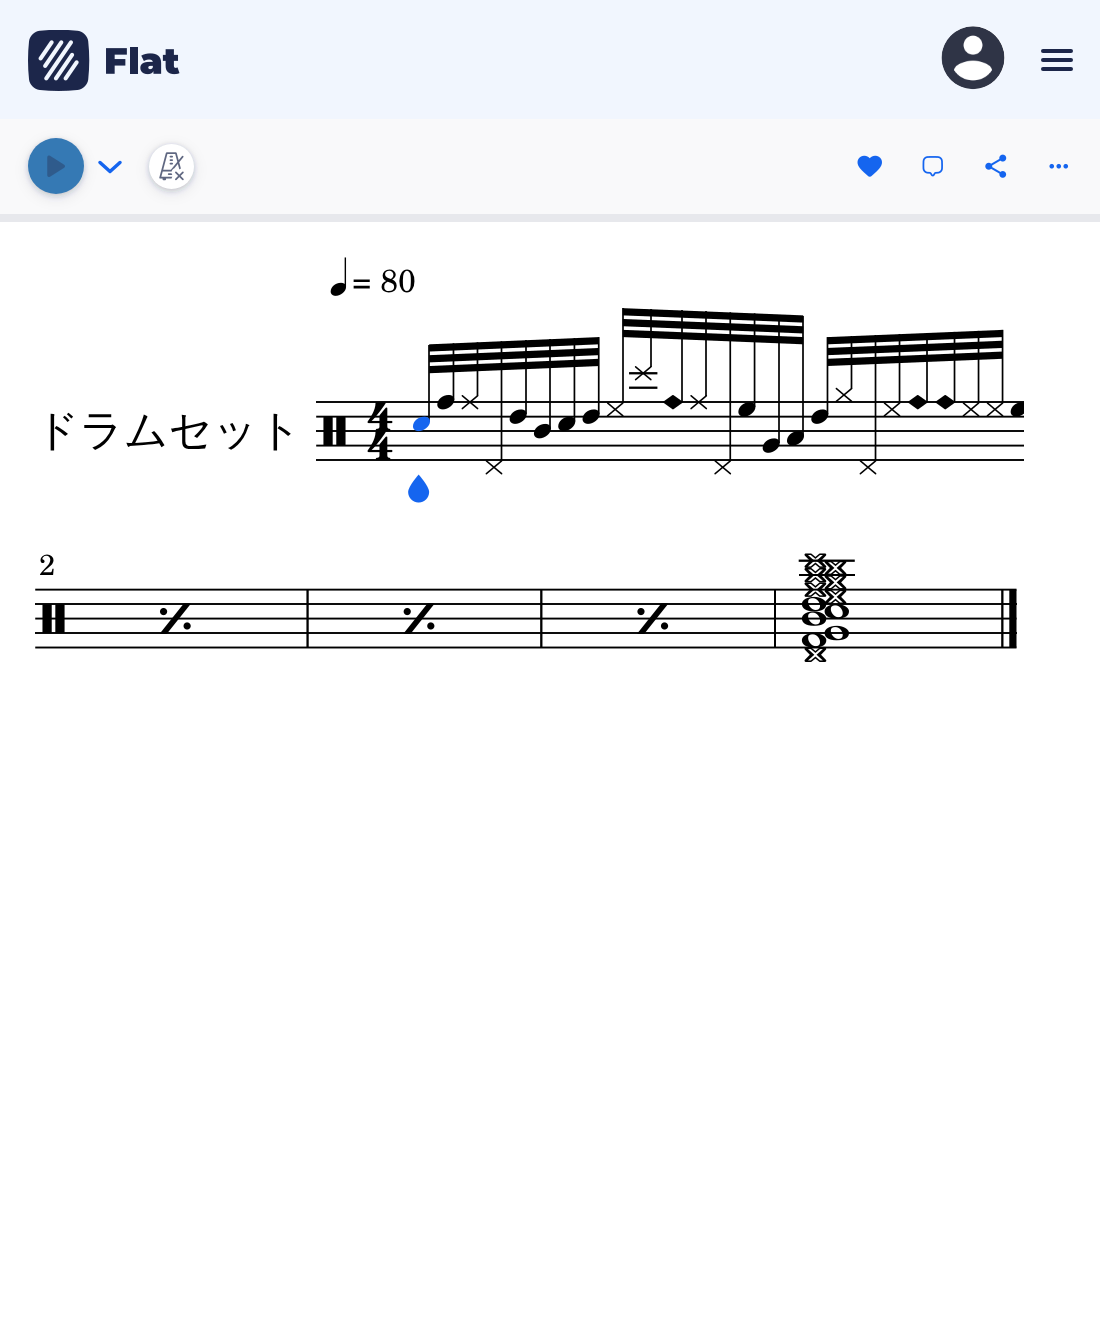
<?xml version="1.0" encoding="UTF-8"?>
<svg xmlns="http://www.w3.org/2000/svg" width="1100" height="1332">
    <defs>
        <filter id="blur1" x="-50%" y="-200%" width="200%" height="500%"><feGaussianBlur stdDeviation="2.5"/></filter>
        <filter id="blur2" x="-50%" y="-200%" width="200%" height="500%"><feGaussianBlur stdDeviation="7"/></filter>
    </defs>
    <rect width="100%" height="100%" fill="#FFFFFF"/>
    <rect x="0" y="0" width="1100" height="119" fill="#F1F6FE"/>
    <image x="28" y="30" width="152" height="61" href="img_01.png"/>
    <circle cx="973.5" cy="57.5" r="31.5" fill="#FFFFFF"/>
    <image x="941" y="26" width="64" height="64" href="img_02.png"/>
    <rect x="1041" y="49" width="32" height="4" rx="2" fill="#1C264A"/>
    <rect x="1041" y="58" width="32" height="4" rx="2" fill="#1C264A"/>
    <rect x="1041" y="67" width="32" height="4" rx="2" fill="#1C264A"/>
    <rect x="0" y="119" width="1100" height="95" fill="#F9F9FA"/>
    <rect x="28" y="140" width="56" height="56" rx="28" fill="#28304F" fill-opacity="0.2" filter="url(#blur1)"/>
    <rect x="28" y="142" width="56" height="56" rx="28" fill="#28304F" fill-opacity="0.1" filter="url(#blur2)"/>
    <circle cx="56" cy="166" r="28" fill="#3579B4"/>
    <image x="47" y="155" width="18" height="22" href="img_03.png"/>
    <path d="M 100 162.5 L 110 171.5 L 120 162.5" fill="none" stroke="#1565EF" stroke-width="3.5" stroke-linecap="round" stroke-linejoin="round"/>
    <rect x="149" y="145" width="45" height="46" rx="22.5" fill="#28304F" fill-opacity="0.2" filter="url(#blur1)"/>
    <rect x="149" y="147" width="45" height="46" rx="22.5" fill="#28304F" fill-opacity="0.1" filter="url(#blur2)"/>
    <circle cx="171.5" cy="166.5" r="22.5" fill="#FFFFFF"/>
    <image x="159" y="152" width="25" height="29" href="img_04.png"/>
    <image x="857" y="155" width="25" height="22" href="img_05.png"/>
    <image x="922" y="156" width="21" height="21" href="img_06.png"/>
    <image x="985" y="154" width="22" height="24" href="img_07.png"/>
    <image x="1049" y="163" width="20" height="6" href="img_08.png"/>
    <rect x="0" y="214" width="1100" height="8" fill="#E7E8EC"/>
    <image x="316" y="257" width="708" height="246" href="img_09.png"/>
    <text x="352" y="292" font-family="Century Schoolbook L" font-size="32" fill="#000000">= 80</text>
    <text x="35" y="445" font-family="WenQuanYi Zen Hei" font-size="43.5" font-weight="500" fill="#000000">ドラムセット</text>
    <image x="35" y="553" width="982" height="109" href="img_10.png"/>
    <text x="39" y="575" font-family="Century Schoolbook L" font-size="29" fill="#000000">2</text>
</svg>
